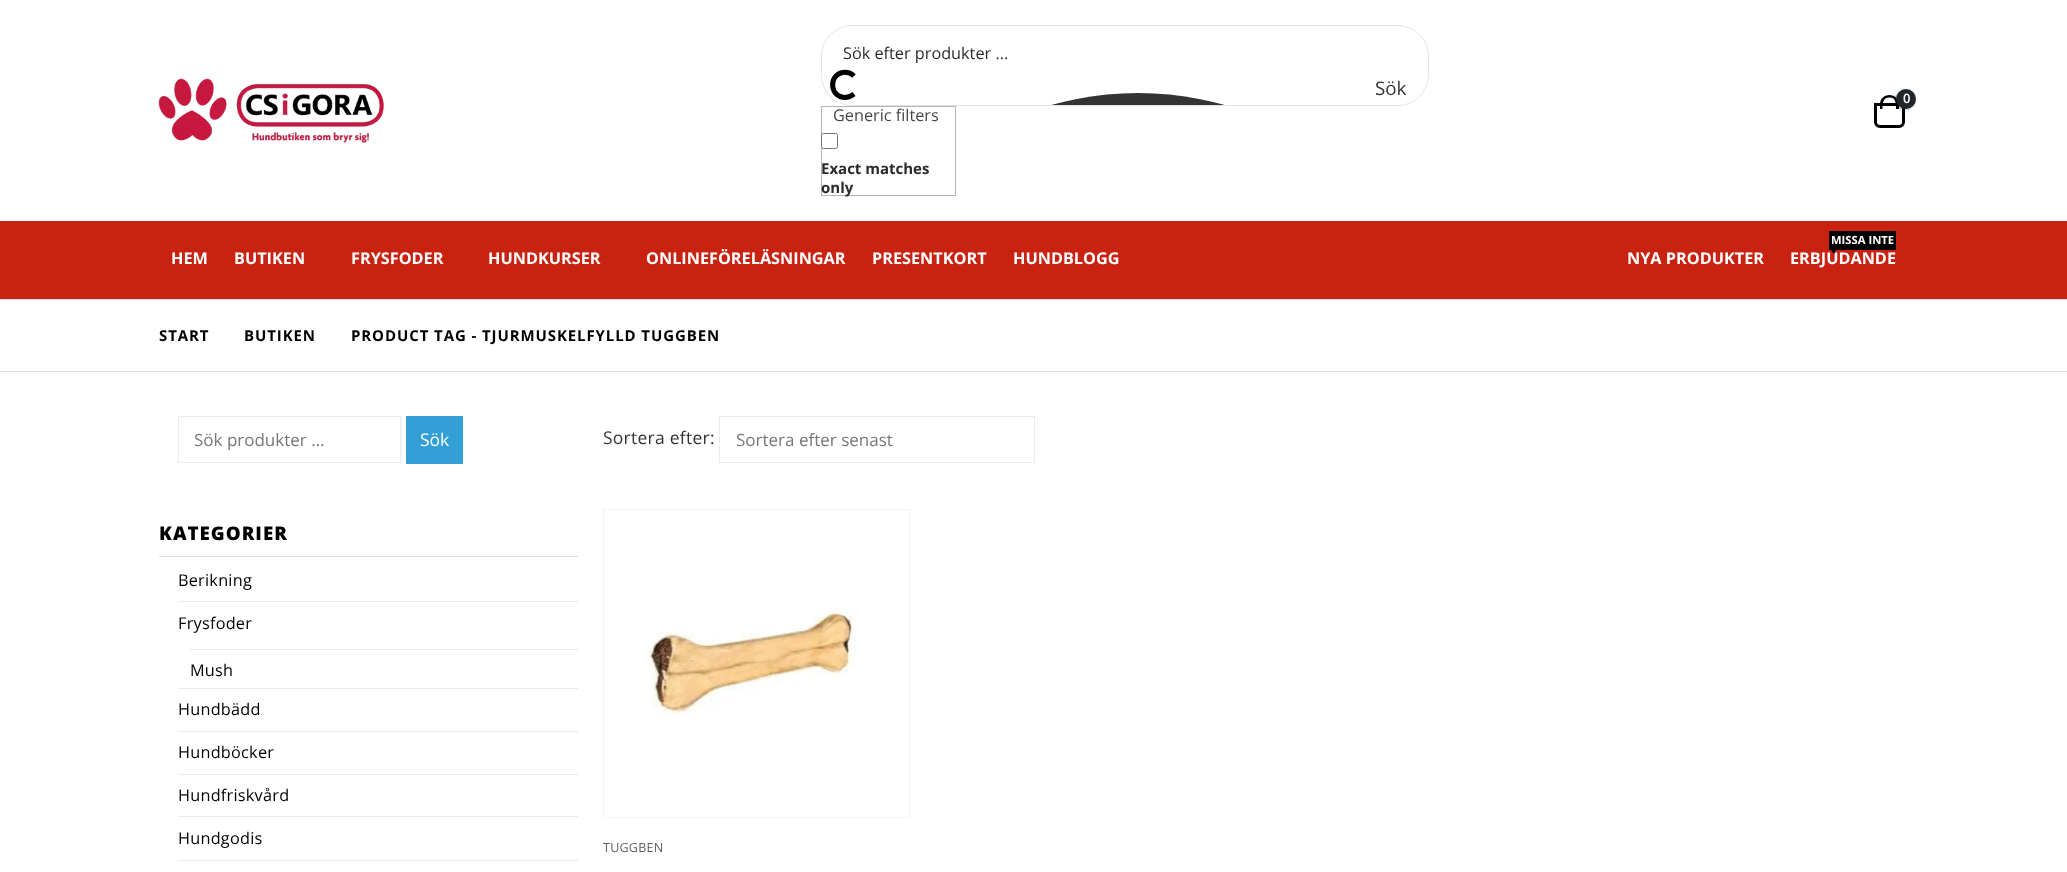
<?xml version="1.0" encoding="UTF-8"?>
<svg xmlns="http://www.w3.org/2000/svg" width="2067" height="872">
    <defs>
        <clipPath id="clip1"><rect x="823" y="26" width="605" height="79" rx="30"/></clipPath>
        <filter id="blur1" x="-50%" y="-200%" width="200%" height="500%"><feGaussianBlur stdDeviation="1"/></filter>
    </defs>
    <rect width="100%" height="100%" fill="#FFFFFF"/>
    <image x="158" y="78" width="226" height="65" href="img_01.png"/>
    <rect x="821.5" y="25.5" width="607" height="80" rx="30.5" fill="none" stroke="#E4E4E4"/>
    <text x="843" y="59" font-family="Open Sans" font-size="16.25" fill="#2B2B2B">Sök efter produkter ...</text>
    <path d="M 854 94 C 851.5 96 848.5 97.5 845 97.5 C 830 97.5 828 75.5 842.5 72.5 C 846.5 72 851 73 854 76" fill="none" stroke="#000000" stroke-width="5"/>
    <text x="1375" y="95" font-family="Open Sans" font-size="18.75" fill="#333333">Sök</text>
    <rect x="821.5" y="106.5" width="134" height="89" fill="none" stroke="#B5B5B5"/>
    <text x="833" y="121" font-family="Open Sans" font-size="16.25" fill="#474747">Generic filters</text>
    <rect x="821.5" y="133.5" width="16" height="15" rx="2" fill="#FFFFFF" stroke="#767676"/>
    <text font-family="Open Sans" font-size="15" font-weight="700" fill="#2B2B2B">
        <tspan x="821" y="174">Exact matches</tspan>
        <tspan x="821" y="193">only</tspan>
    </text>
    <rect x="0" y="221" width="2067" height="78" fill="#C92210"/>
    <g clip-path="url(#clip1)">
        <circle cx="1138" cy="413" r="320" fill="#333333"/>
    </g>
    <path d="M 1875.5 104.5 H 1903.5 V 122 C 1903.5 124.5 1901.5 126.5 1899 126.5 H 1880 C 1877.5 126.5 1875.5 124.5 1875.5 122 Z" fill="none" stroke="#000000" stroke-width="3"/>
    <path d="M 1889.5 95 C 1894.5 95 1899 99 1899 104.5 V 109 H 1880 V 104.5 C 1880 99 1884 95 1889.5 95 Z M 1889.5 97.5 C 1896.5 97.5 1896 104 1896 109 H 1882.5 C 1882.5 104 1882.5 97.5 1889.5 97.5 Z" fill="#000000" fill-rule="evenodd"/>
    <rect x="1895" y="90" width="20" height="20" rx="10" fill="#000000" fill-opacity="0.3" filter="url(#blur1)"/>
    <circle cx="1906" cy="99" r="10" fill="#222529"/>
    <text x="1903" y="103" font-family="Open Sans" font-size="13" font-weight="600" letter-spacing="0.25" fill="#FFFFFF">0</text>
    <text x="171" y="264" font-family="Open Sans" font-size="16.25" font-weight="700" fill="#FFFFFF">HEM</text>
    <text x="234" y="264" font-family="Open Sans" font-size="16.25" font-weight="700" fill="#FFFFFF">BUTIKEN</text>
    <text x="351" y="264" font-family="Open Sans" font-size="16.25" font-weight="700" fill="#FFFFFF">FRYSFODER</text>
    <text x="488" y="264" font-family="Open Sans" font-size="16.25" font-weight="700" fill="#FFFFFF">HUNDKURSER</text>
    <text x="646" y="264" font-family="Open Sans" font-size="16.25" font-weight="700" fill="#FFFFFF">ONLINEFÖRELÄSNINGAR</text>
    <text x="872" y="264" font-family="Open Sans" font-size="16.25" font-weight="700" fill="#FFFFFF">PRESENTKORT</text>
    <text x="1013" y="264" font-family="Open Sans" font-size="16.25" font-weight="700" fill="#FFFFFF">HUNDBLOGG</text>
    <text x="1627" y="264" font-family="Open Sans" font-size="16.25" font-weight="700" fill="#FFFFFF">NYA PRODUKTER</text>
    <rect x="1829" y="231" width="67" height="19" fill="#000000"/>
    <text x="1831" y="244" font-family="Open Sans" font-size="11.25" font-weight="700" fill="#FFFFFF">MISSA INTE</text>
    <text x="1790" y="264" font-family="Open Sans" font-size="16.25" font-weight="700" fill="#FFFFFF">ERBJUDANDE</text>
    <path d="M 1831 250 H 1836 L 1834 254 Z" fill="#000000"/>
    <rect x="0" y="299" width="2067" height="1" fill="#DFDFDF"/>
    <rect x="0" y="371" width="2067" height="1" fill="#DFDFDF"/>
    <text x="159" y="341" font-family="Open Sans" font-size="15" font-weight="700" letter-spacing="0.9" fill="#000000">START</text>
    <text x="244" y="341" font-family="Open Sans" font-size="15" font-weight="700" letter-spacing="0.9" fill="#000000">BUTIKEN</text>
    <text x="351" y="341" font-family="Open Sans" font-size="15" font-weight="700" letter-spacing="0.9" fill="#000000">PRODUCT TAG - TJURMUSKELFYLLD TUGGBEN</text>
    <rect x="178.5" y="416.5" width="222" height="46" fill="none" stroke="#EBEBEB"/>
    <text x="194" y="446" font-family="Open Sans" font-size="17" fill="#777777">Sök produkter …</text>
    <rect x="406" y="416" width="57" height="48" fill="#339FD6"/>
    <text x="420" y="446" font-family="Open Sans" font-size="17.5" fill="#FFFFFF">Sök</text>
    <rect x="159" y="556" width="419" height="1" fill="#DFDFDF"/>
    <text x="159" y="540" font-family="Open Sans" font-size="18.75" font-weight="800" letter-spacing="1" fill="#000000">KATEGORIER</text>
    <text x="178" y="586" font-family="Open Sans" font-size="16.25" letter-spacing="0.25" fill="#000000">Berikning</text>
    <rect x="178" y="601" width="400" height="1" fill="#EBEBEB"/>
    <text x="178" y="629" font-family="Open Sans" font-size="16.25" letter-spacing="0.25" fill="#000000">Frysfoder</text>
    <rect x="190" y="649" width="388" height="1" fill="#EBEBEB"/>
    <text x="190" y="676" font-family="Open Sans" font-size="16.25" letter-spacing="0.25" fill="#000000">Mush</text>
    <rect x="178" y="688" width="400" height="1" fill="#EBEBEB"/>
    <text x="178" y="715" font-family="Open Sans" font-size="16.25" letter-spacing="0.25" fill="#000000">Hundbädd</text>
    <rect x="178" y="731" width="400" height="1" fill="#EBEBEB"/>
    <text x="178" y="758" font-family="Open Sans" font-size="16.25" letter-spacing="0.25" fill="#000000">Hundböcker</text>
    <rect x="178" y="774" width="400" height="1" fill="#EBEBEB"/>
    <text x="178" y="801" font-family="Open Sans" font-size="16.25" letter-spacing="0.25" fill="#000000">Hundfriskvård</text>
    <rect x="178" y="816" width="400" height="1" fill="#EBEBEB"/>
    <text x="178" y="844" font-family="Open Sans" font-size="16.25" letter-spacing="0.25" fill="#000000">Hundgodis</text>
    <rect x="178" y="860" width="400" height="1" fill="#EBEBEB"/>
    <text x="603" y="444" font-family="Open Sans" font-size="17.5" letter-spacing="0.25" fill="#333333">Sortera efter:</text>
    <rect x="719.5" y="416.5" width="315" height="46" fill="none" stroke="#EBEBEB"/>
    <text x="736" y="446" font-family="Open Sans" font-size="17" fill="#777777">Sortera efter senast</text>
    <rect x="603.5" y="509.5" width="306" height="308" fill="none" stroke="#F4F4F4"/>
    <image x="645" y="609" width="211" height="105" href="img_02.png"/>
    <text x="603" y="852" font-family="Open Sans" font-size="12.5" letter-spacing="0.25" fill="#5D5D5D">TUGGBEN</text>
</svg>
